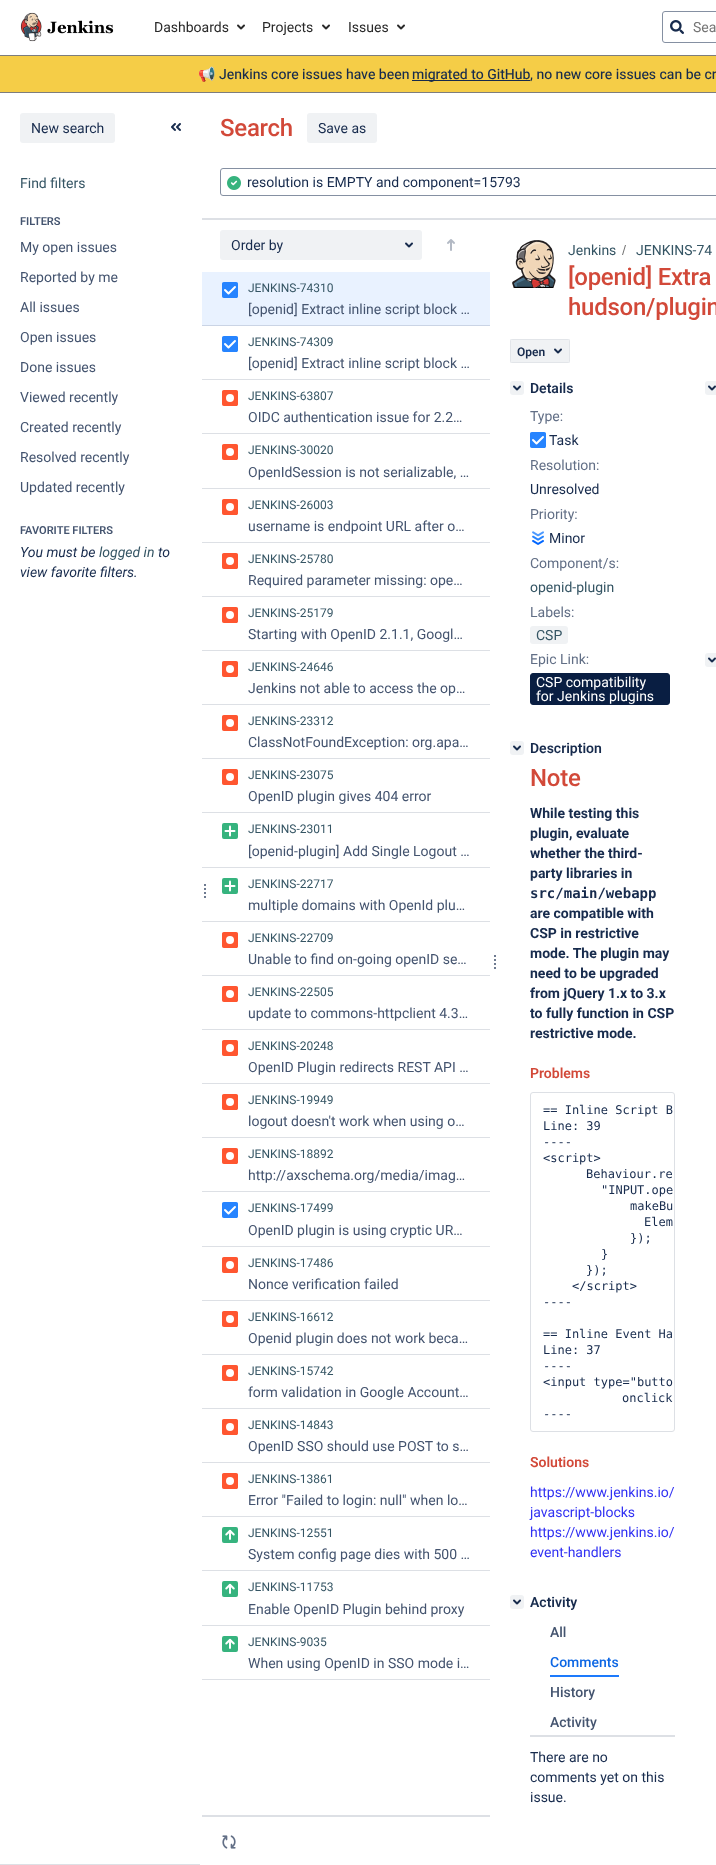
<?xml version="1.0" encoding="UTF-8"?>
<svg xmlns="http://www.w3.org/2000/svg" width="716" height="1865">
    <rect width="100%" height="100%" fill="#FFFFFF"/>
    <rect x="0" y="55" width="716" height="1" fill="#7D7D7D"/>
    <image x="20" y="12" width="94" height="30" href="img_01.png"/>
    <text x="154" y="32" font-family="'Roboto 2'" font-size="14" fill="#292929">Dashboards</text>
    <image x="237" y="24" width="8" height="6" href="img_02.png"/>
    <text x="262" y="32" font-family="'Roboto 2'" font-size="14" fill="#292929">Projects</text>
    <image x="322" y="24" width="8" height="6" href="img_02.png"/>
    <text x="348" y="32" font-family="'Roboto 2'" font-size="14" fill="#292929">Issues</text>
    <image x="397" y="24" width="8" height="6" href="img_02.png"/>
    <rect x="662.5" y="11.5" width="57" height="31" rx="2.5" fill="none" stroke="#8590A2"/>
    <image x="670" y="20" width="14" height="14" href="img_03.png"/>
    <text x="693" y="32" font-family="'Roboto 2'" font-size="14" fill="#757575">Sea</text>
    <rect x="0" y="56" width="716" height="36" fill="#F5CD47"/>
    <rect x="0" y="92" width="716" height="1" fill="#7D7D7D"/>
    <text x="198" y="79" font-family="Noto Color Emoji" font-size="14" fill="#172B4D">📢</text>
    <text x="219" y="79" font-family="Roboto" font-size="14" fill="#172B4D">Jenkins core issues have been</text>
    <rect x="412" y="80" width="118" height="1" fill="#172B4D"/>
    <text x="412" y="79" font-family="Roboto" font-size="14" fill="#172B4D">migrated to GitHub</text>
    <text x="530" y="79" font-family="Roboto" font-size="14" fill="#172B4D">, no new core issues can be cr</text>
    <rect x="0" y="1864" width="200" height="1" fill="#DDE0E5"/>
    <rect x="20" y="113" width="95" height="30" rx="3" fill="#F0F2F4"/>
    <text x="31" y="133" font-family="'Roboto 2'" font-size="14" fill="#172B4D">New search</text>
    <image x="171" y="123" width="10" height="8" href="img_04.png"/>
    <text x="20" y="188" font-family="'Roboto 2'" font-size="14" fill="#355564">Find filters</text>
    <text x="20" y="225" font-family="Roboto" font-size="11" font-weight="600" fill="#44546F">FILTERS</text>
    <text x="20" y="252" font-family="'Roboto 2'" font-size="14" fill="#44546F">My open issues</text>
    <text x="20" y="282" font-family="'Roboto 2'" font-size="14" fill="#44546F">Reported by me</text>
    <text x="20" y="312" font-family="'Roboto 2'" font-size="14" fill="#44546F">All issues</text>
    <text x="20" y="342" font-family="'Roboto 2'" font-size="14" fill="#44546F">Open issues</text>
    <text x="20" y="372" font-family="'Roboto 2'" font-size="14" fill="#44546F">Done issues</text>
    <text x="20" y="402" font-family="'Roboto 2'" font-size="14" fill="#44546F">Viewed recently</text>
    <text x="20" y="432" font-family="'Roboto 2'" font-size="14" fill="#44546F">Created recently</text>
    <text x="20" y="462" font-family="'Roboto 2'" font-size="14" fill="#44546F">Resolved recently</text>
    <text x="20" y="492" font-family="'Roboto 2'" font-size="14" fill="#44546F">Updated recently</text>
    <text x="20" y="534" font-family="Roboto" font-size="11" font-weight="600" fill="#44546F">FAVORITE FILTERS</text>
    <text x="20" y="557" font-family="Roboto" font-size="14" font-style="italic" fill="#172B4D">You must be</text>
    <text x="99" y="557" font-family="Roboto" font-size="14" font-style="italic" fill="#355564">logged in</text>
    <text x="158" y="557" font-family="Roboto" font-size="14" font-style="italic" fill="#172B4D">to</text>
    <text x="20" y="577" font-family="Roboto" font-size="14" font-style="italic" fill="#172B4D">view favorite filters.</text>
    <rect x="200" y="218" width="516" height="2" fill="#DDE0E5"/>
    <rect x="200" y="1815" width="290" height="2" fill="#DDE0E5"/>
    <rect x="200" y="218" width="2" height="1599" fill="#FFFFFF"/>
    <image x="204" y="884" width="2" height="14" href="img_05.png"/>
    <text x="220" y="136" font-family="Roboto" font-size="24" font-weight="500" letter-spacing="-0.25" fill="#D24939">Search</text>
    <rect x="307" y="113" width="70" height="30" rx="3" fill="#F0F2F4"/>
    <text x="318" y="133" font-family="'Roboto 2'" font-size="14" fill="#172B4D">Save as</text>
    <rect x="220.5" y="168.5" width="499" height="27" rx="2.5" fill="none" stroke="#8590A2"/>
    <image x="227" y="176" width="14" height="14" href="img_06.png"/>
    <text x="247" y="187" font-family="'Roboto 2'" font-size="14" fill="#172B4D">resolution is EMPTY and component=15793</text>
    <rect x="220" y="230" width="202" height="30" rx="3" fill="#F0F2F4"/>
    <text x="231" y="250" font-family="'Roboto 2'" font-size="14" fill="#172B4D">Order by</text>
    <image x="405" y="242" width="8" height="6" href="img_07.png"/>
    <image x="447" y="239" width="8" height="12" href="img_08.png"/>
    <rect x="202" y="272" width="288" height="53" fill="#E9F2FF"/>
    <rect x="202" y="325" width="288" height="1" fill="#CAD4E5"/>
    <image x="222" y="282" width="16" height="16" href="img_09.png"/>
    <text x="248" y="292" font-family="'Roboto 2'" font-size="12" fill="#355564">JENKINS-74310</text>
    <text x="248" y="314" font-family="'Roboto 2'" font-size="14" fill="#44546F">[openid] Extract inline script block …</text>
    <rect x="202" y="379" width="288" height="1" fill="#DDE0E5"/>
    <image x="222" y="336" width="16" height="16" href="img_10.png"/>
    <text x="248" y="346" font-family="'Roboto 2'" font-size="12" fill="#355564">JENKINS-74309</text>
    <text x="248" y="368" font-family="'Roboto 2'" font-size="14" fill="#44546F">[openid] Extract inline script block …</text>
    <rect x="202" y="433" width="288" height="1" fill="#DDE0E5"/>
    <image x="222" y="390" width="16" height="16" href="img_11.png"/>
    <text x="248" y="400" font-family="'Roboto 2'" font-size="12" fill="#355564">JENKINS-63807</text>
    <text x="248" y="422" font-family="'Roboto 2'" font-size="14" fill="#44546F">OIDC authentication issue for 2.2…</text>
    <rect x="202" y="488" width="288" height="1" fill="#DDE0E5"/>
    <image x="222" y="444" width="16" height="16" href="img_11.png"/>
    <text x="248" y="454" font-family="'Roboto 2'" font-size="12" fill="#355564">JENKINS-30020</text>
    <text x="248" y="477" font-family="'Roboto 2'" font-size="14" fill="#44546F">OpenIdSession is not serializable, …</text>
    <rect x="202" y="542" width="288" height="1" fill="#DDE0E5"/>
    <image x="222" y="499" width="16" height="16" href="img_12.png"/>
    <text x="248" y="509" font-family="'Roboto 2'" font-size="12" fill="#355564">JENKINS-26003</text>
    <text x="248" y="531" font-family="'Roboto 2'" font-size="14" fill="#44546F">username is endpoint URL after o…</text>
    <rect x="202" y="596" width="288" height="1" fill="#DDE0E5"/>
    <image x="222" y="553" width="16" height="16" href="img_11.png"/>
    <text x="248" y="563" font-family="'Roboto 2'" font-size="12" fill="#355564">JENKINS-25780</text>
    <text x="248" y="585" font-family="'Roboto 2'" font-size="14" fill="#44546F">Required parameter missing: ope…</text>
    <rect x="202" y="650" width="288" height="1" fill="#DDE0E5"/>
    <image x="222" y="607" width="16" height="16" href="img_11.png"/>
    <text x="248" y="617" font-family="'Roboto 2'" font-size="12" fill="#355564">JENKINS-25179</text>
    <text x="248" y="639" font-family="'Roboto 2'" font-size="14" fill="#44546F">Starting with OpenID 2.1.1, Googl…</text>
    <rect x="202" y="704" width="288" height="1" fill="#DDE0E5"/>
    <image x="222" y="661" width="16" height="16" href="img_11.png"/>
    <text x="248" y="671" font-family="'Roboto 2'" font-size="12" fill="#355564">JENKINS-24646</text>
    <text x="248" y="693" font-family="'Roboto 2'" font-size="14" fill="#44546F">Jenkins not able to access the op…</text>
    <rect x="202" y="758" width="288" height="1" fill="#DDE0E5"/>
    <image x="222" y="715" width="16" height="16" href="img_11.png"/>
    <text x="248" y="725" font-family="'Roboto 2'" font-size="12" fill="#355564">JENKINS-23312</text>
    <text x="248" y="747" font-family="'Roboto 2'" font-size="14" fill="#44546F">ClassNotFoundException: org.apa…</text>
    <rect x="202" y="812" width="288" height="1" fill="#DDE0E5"/>
    <image x="222" y="769" width="16" height="16" href="img_11.png"/>
    <text x="248" y="779" font-family="'Roboto 2'" font-size="12" fill="#355564">JENKINS-23075</text>
    <text x="248" y="801" font-family="'Roboto 2'" font-size="14" fill="#44546F">OpenID plugin gives 404 error</text>
    <rect x="202" y="867" width="288" height="1" fill="#DDE0E5"/>
    <image x="222" y="823" width="16" height="16" href="img_13.png"/>
    <text x="248" y="833" font-family="'Roboto 2'" font-size="12" fill="#355564">JENKINS-23011</text>
    <text x="248" y="856" font-family="'Roboto 2'" font-size="14" fill="#44546F">[openid-plugin] Add Single Logout …</text>
    <rect x="202" y="921" width="288" height="1" fill="#DDE0E5"/>
    <image x="222" y="878" width="16" height="16" href="img_14.png"/>
    <text x="248" y="888" font-family="'Roboto 2'" font-size="12" fill="#355564">JENKINS-22717</text>
    <text x="248" y="910" font-family="'Roboto 2'" font-size="14" fill="#44546F">multiple domains with OpenId plu…</text>
    <rect x="202" y="975" width="288" height="1" fill="#DDE0E5"/>
    <image x="222" y="932" width="16" height="16" href="img_11.png"/>
    <text x="248" y="942" font-family="'Roboto 2'" font-size="12" fill="#355564">JENKINS-22709</text>
    <text x="248" y="964" font-family="'Roboto 2'" font-size="14" fill="#44546F">Unable to find on-going openID se…</text>
    <rect x="202" y="1029" width="288" height="1" fill="#DDE0E5"/>
    <image x="222" y="986" width="16" height="16" href="img_11.png"/>
    <text x="248" y="996" font-family="'Roboto 2'" font-size="12" fill="#355564">JENKINS-22505</text>
    <text x="248" y="1018" font-family="'Roboto 2'" font-size="14" fill="#44546F">update to commons-httpclient 4.3…</text>
    <rect x="202" y="1083" width="288" height="1" fill="#DDE0E5"/>
    <image x="222" y="1040" width="16" height="16" href="img_11.png"/>
    <text x="248" y="1050" font-family="'Roboto 2'" font-size="12" fill="#355564">JENKINS-20248</text>
    <text x="248" y="1072" font-family="'Roboto 2'" font-size="14" fill="#44546F">OpenID Plugin redirects REST API …</text>
    <rect x="202" y="1137" width="288" height="1" fill="#DDE0E5"/>
    <image x="222" y="1094" width="16" height="16" href="img_11.png"/>
    <text x="248" y="1104" font-family="'Roboto 2'" font-size="12" fill="#355564">JENKINS-19949</text>
    <text x="248" y="1126" font-family="'Roboto 2'" font-size="14" fill="#44546F">logout doesn't work when using o…</text>
    <rect x="202" y="1191" width="288" height="1" fill="#DDE0E5"/>
    <image x="222" y="1148" width="16" height="16" href="img_11.png"/>
    <text x="248" y="1158" font-family="'Roboto 2'" font-size="12" fill="#355564">JENKINS-18892</text>
    <text x="248" y="1180" font-family="'Roboto 2'" font-size="14" fill="#44546F">http://axschema.org/media/imag…</text>
    <rect x="202" y="1246" width="288" height="1" fill="#DDE0E5"/>
    <image x="222" y="1202" width="16" height="16" href="img_10.png"/>
    <text x="248" y="1212" font-family="'Roboto 2'" font-size="12" fill="#355564">JENKINS-17499</text>
    <text x="248" y="1235" font-family="'Roboto 2'" font-size="14" fill="#44546F">OpenID plugin is using cryptic UR…</text>
    <rect x="202" y="1300" width="288" height="1" fill="#DDE0E5"/>
    <image x="222" y="1257" width="16" height="16" href="img_11.png"/>
    <text x="248" y="1267" font-family="'Roboto 2'" font-size="12" fill="#355564">JENKINS-17486</text>
    <text x="248" y="1289" font-family="'Roboto 2'" font-size="14" fill="#44546F">Nonce verification failed</text>
    <rect x="202" y="1354" width="288" height="1" fill="#DDE0E5"/>
    <image x="222" y="1311" width="16" height="16" href="img_11.png"/>
    <text x="248" y="1321" font-family="'Roboto 2'" font-size="12" fill="#355564">JENKINS-16612</text>
    <text x="248" y="1343" font-family="'Roboto 2'" font-size="14" fill="#44546F">Openid plugin does not work beca…</text>
    <rect x="202" y="1408" width="288" height="1" fill="#DDE0E5"/>
    <image x="222" y="1365" width="16" height="16" href="img_11.png"/>
    <text x="248" y="1375" font-family="'Roboto 2'" font-size="12" fill="#355564">JENKINS-15742</text>
    <text x="248" y="1397" font-family="'Roboto 2'" font-size="14" fill="#44546F">form validation in Google Account…</text>
    <rect x="202" y="1462" width="288" height="1" fill="#DDE0E5"/>
    <image x="222" y="1419" width="16" height="16" href="img_11.png"/>
    <text x="248" y="1429" font-family="'Roboto 2'" font-size="12" fill="#355564">JENKINS-14843</text>
    <text x="248" y="1451" font-family="'Roboto 2'" font-size="14" fill="#44546F">OpenID SSO should use POST to s…</text>
    <rect x="202" y="1516" width="288" height="1" fill="#DDE0E5"/>
    <image x="222" y="1473" width="16" height="16" href="img_11.png"/>
    <text x="248" y="1483" font-family="'Roboto 2'" font-size="12" fill="#355564">JENKINS-13861</text>
    <text x="248" y="1505" font-family="'Roboto 2'" font-size="14" fill="#44546F">Error "Failed to login: null" when lo…</text>
    <rect x="202" y="1570" width="288" height="1" fill="#DDE0E5"/>
    <image x="222" y="1527" width="16" height="16" href="img_15.png"/>
    <text x="248" y="1537" font-family="'Roboto 2'" font-size="12" fill="#355564">JENKINS-12551</text>
    <text x="248" y="1559" font-family="'Roboto 2'" font-size="14" fill="#44546F">System config page dies with 500 …</text>
    <rect x="202" y="1625" width="288" height="1" fill="#DDE0E5"/>
    <image x="222" y="1581" width="16" height="16" href="img_15.png"/>
    <text x="248" y="1591" font-family="'Roboto 2'" font-size="12" fill="#355564">JENKINS-11753</text>
    <text x="248" y="1614" font-family="'Roboto 2'" font-size="14" fill="#44546F">Enable OpenID Plugin behind proxy</text>
    <rect x="202" y="1679" width="288" height="1" fill="#DDE0E5"/>
    <image x="222" y="1636" width="16" height="16" href="img_16.png"/>
    <text x="248" y="1646" font-family="'Roboto 2'" font-size="12" fill="#355564">JENKINS-9035</text>
    <text x="248" y="1668" font-family="'Roboto 2'" font-size="14" fill="#44546F">When using OpenID in SSO mode i…</text>
    <image x="222" y="1835" width="14" height="14" href="img_17.png"/>
    <image x="494" y="955" width="2" height="14" href="img_05.png"/>
    <image x="512" y="240" width="44" height="48" href="img_18.png"/>
    <text x="568" y="255" font-family="'Roboto 2'" font-size="14" fill="#355564">Jenkins</text>
    <path d="M 623 255 L 626 245 H 625 L 622 255 Z" fill="#707070"/>
    <text x="636" y="255" font-family="'Roboto 2'" font-size="14" fill="#355564">JENKINS-74</text>
    <text font-family="Roboto" font-size="24" font-weight="500" letter-spacing="-0.25" fill="#D24939">
        <tspan x="568" y="285">[openid] Extra</tspan>
        <tspan x="568" y="315">hudson/plugin</tspan>
    </text>
    <rect x="510" y="339" width="60" height="24" rx="3" fill="#F0F2F4"/>
    <rect x="510.5" y="339.5" width="59" height="23" fill="none" stroke="#091E42" stroke-opacity="0.06"/>
    <text x="517" y="356" font-family="Roboto" font-size="12" font-weight="600" fill="#172B4D">Open</text>
    <image x="554" y="348" width="8" height="6" href="img_07.png"/>
    <rect x="510" y="381" width="14" height="14" rx="3" fill="#F0F2F4"/>
    <image x="513" y="385" width="8" height="6" href="img_19.png"/>
    <text x="530" y="393" font-family="Roboto" font-size="14" font-weight="600" fill="#172B4D">Details</text>
    <text x="530" y="421" font-family="'Roboto 2'" font-size="14" fill="#626F86">Type:</text>
    <image x="530" y="432" width="16" height="16" href="img_10.png"/>
    <text x="549" y="445" font-family="'Roboto 2'" font-size="14" fill="#172B4D">Task</text>
    <text x="530" y="470" font-family="'Roboto 2'" font-size="14" fill="#626F86">Resolution:</text>
    <text x="530" y="494" font-family="'Roboto 2'" font-size="14" fill="#172B4D">Unresolved</text>
    <text x="530" y="519" font-family="'Roboto 2'" font-size="14" fill="#626F86">Priority:</text>
    <image x="532" y="531" width="12" height="14" href="img_20.png"/>
    <text x="549" y="543" font-family="'Roboto 2'" font-size="14" fill="#172B4D">Minor</text>
    <text x="530" y="568" font-family="'Roboto 2'" font-size="14" fill="#626F86">Component/s:</text>
    <text x="530" y="592" font-family="'Roboto 2'" font-size="14" fill="#355564">openid-plugin</text>
    <text x="530" y="617" font-family="'Roboto 2'" font-size="14" fill="#626F86">Labels:</text>
    <rect x="530" y="626" width="38" height="18" rx="3" fill="#F0F2F4"/>
    <text x="536" y="640" font-family="'Roboto 2'" font-size="14" fill="#355564">CSP</text>
    <text x="530" y="664" font-family="'Roboto 2'" font-size="14" fill="#626F86">Epic Link:</text>
    <rect x="530.5" y="673.5" width="139" height="31" rx="2.5" fill="#091E42" stroke="#091E42"/>
    <text font-family="'Roboto 2'" font-size="14" fill="#FFFFFF">
        <tspan x="536" y="687">CSP compatibility</tspan>
        <tspan x="536" y="701">for Jenkins plugins</tspan>
    </text>
    <rect x="510" y="741" width="14" height="14" rx="3" fill="#F0F2F4"/>
    <image x="513" y="745" width="8" height="6" href="img_19.png"/>
    <text x="530" y="753" font-family="Roboto" font-size="14" font-weight="600" fill="#172B4D">Description</text>
    <text x="530" y="786" font-family="Roboto" font-size="24" font-weight="500" letter-spacing="-0.25" fill="#D24939">Note</text>
    <text font-family="Roboto" font-size="14" font-weight="700" fill="#172B4D">
        <tspan x="530" y="818">While testing this</tspan>
        <tspan x="530" y="838">plugin, evaluate</tspan>
        <tspan x="530" y="858">whether the third-</tspan>
        <tspan x="530" y="878">party libraries in</tspan>
    </text>
    <text x="530" y="898" font-family="DejaVu Sans Mono" font-size="14" font-weight="700" fill="#172B4D">src/main/webapp</text>
    <text font-family="Roboto" font-size="14" font-weight="700" fill="#172B4D">
        <tspan x="530" y="918">are compatible with</tspan>
        <tspan x="530" y="938">CSP in restrictive</tspan>
        <tspan x="530" y="958">mode. The plugin may</tspan>
        <tspan x="530" y="978">need to be upgraded</tspan>
        <tspan x="530" y="998">from jQuery 1.x to 3.x</tspan>
        <tspan x="530" y="1018">to fully function in CSP</tspan>
        <tspan x="530" y="1038">restrictive mode.</tspan>
    </text>
    <text x="530" y="1078" font-family="Roboto" font-size="14" font-weight="600" fill="#D24939">Problems</text>
    <rect x="530.5" y="1092.5" width="144" height="339" rx="2.5" fill="none" stroke="#DDE0E5"/>
    <text font-family="DejaVu Sans Mono" font-size="12" fill="#172B4D">
        <tspan x="543" y="1114">== Inline Script B</tspan>
        <tspan x="543" y="1130">Line: 39</tspan>
        <tspan x="543" y="1146">----</tspan>
        <tspan x="543" y="1162">&lt;script&gt;</tspan>
    </text>
    <text x="586" y="1178" font-family="DejaVu Sans Mono" font-size="12" fill="#172B4D">Behaviour.re</text>
    <text x="601" y="1194" font-family="DejaVu Sans Mono" font-size="12" fill="#172B4D">"INPUT.ope</text>
    <text x="630" y="1210" font-family="DejaVu Sans Mono" font-size="12" fill="#172B4D">makeBu</text>
    <text x="644" y="1226" font-family="DejaVu Sans Mono" font-size="12" fill="#172B4D">Elem</text>
    <text x="630" y="1242" font-family="DejaVu Sans Mono" font-size="12" fill="#172B4D">});</text>
    <text x="601" y="1258" font-family="DejaVu Sans Mono" font-size="12" fill="#172B4D">}</text>
    <text x="586" y="1274" font-family="DejaVu Sans Mono" font-size="12" fill="#172B4D">});</text>
    <text x="572" y="1290" font-family="DejaVu Sans Mono" font-size="12" fill="#172B4D">&lt;/script&gt;</text>
    <text x="543" y="1306" font-family="DejaVu Sans Mono" font-size="12" fill="#172B4D">----</text>
    <text font-family="DejaVu Sans Mono" font-size="12" fill="#172B4D">
        <tspan x="543" y="1338">== Inline Event Ha</tspan>
        <tspan x="543" y="1354">Line: 37</tspan>
        <tspan x="543" y="1370">----</tspan>
        <tspan x="543" y="1386">&lt;input type="butto</tspan>
    </text>
    <text x="622" y="1402" font-family="DejaVu Sans Mono" font-size="12" fill="#172B4D">onclick</text>
    <text x="543" y="1418" font-family="DejaVu Sans Mono" font-size="12" fill="#172B4D">----</text>
    <text x="530" y="1467" font-family="Roboto" font-size="14" font-weight="600" fill="#D24939">Solutions</text>
    <text font-family="'Roboto 2'" font-size="14" fill="#3131F3">
        <tspan x="530" y="1497">https://www.jenkins.io/</tspan>
        <tspan x="530" y="1517">javascript-blocks</tspan>
        <tspan x="530" y="1537">https://www.jenkins.io/</tspan>
        <tspan x="530" y="1557">event-handlers</tspan>
    </text>
    <rect x="510" y="1595" width="14" height="14" rx="3" fill="#F0F2F4"/>
    <image x="513" y="1599" width="8" height="6" href="img_19.png"/>
    <text x="530" y="1607" font-family="Roboto" font-size="14" font-weight="600" fill="#172B4D">Activity</text>
    <text x="550" y="1637" font-family="Roboto" font-size="14" font-weight="500" fill="#44546F">All</text>
    <text x="550" y="1667" font-family="Roboto" font-size="14" font-weight="500" fill="#0C66E4">Comments</text>
    <rect x="550" y="1675" width="69" height="2" fill="#1D7AFC"/>
    <text x="550" y="1697" font-family="Roboto" font-size="14" font-weight="500" fill="#44546F">History</text>
    <text x="550" y="1727" font-family="Roboto" font-size="14" font-weight="500" fill="#44546F">Activity</text>
    <rect x="530" y="1735" width="145" height="2" fill="#DDE0E5"/>
    <text font-family="'Roboto 2'" font-size="14" fill="#172B4D">
        <tspan x="530" y="1762">There are no</tspan>
        <tspan x="530" y="1782">comments yet on this</tspan>
        <tspan x="530" y="1802">issue.</tspan>
    </text>
    <rect x="705" y="381" width="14" height="14" rx="3" fill="#F0F2F4"/>
    <image x="708" y="385" width="8" height="6" href="img_19.png"/>
    <rect x="705" y="653" width="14" height="14" rx="3" fill="#F0F2F4"/>
    <image x="708" y="657" width="8" height="6" href="img_19.png"/>
</svg>
